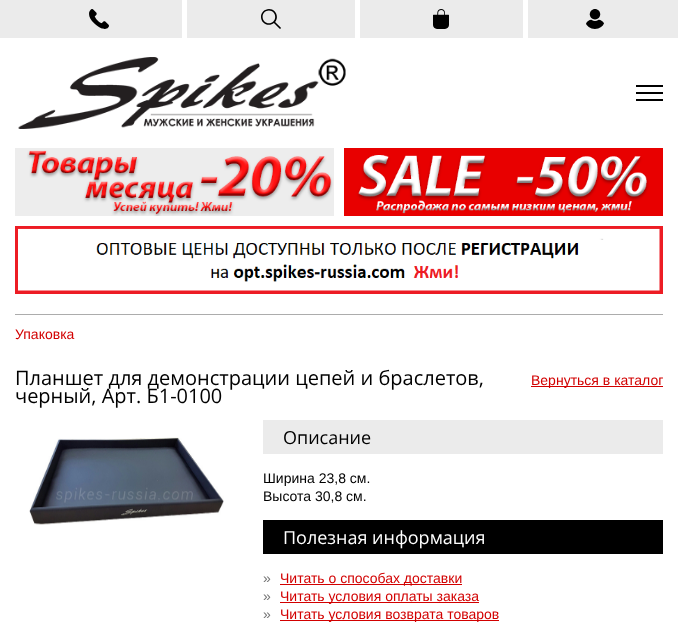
<?xml version="1.0" encoding="UTF-8"?>
<svg xmlns="http://www.w3.org/2000/svg" width="678" height="634">
    <rect width="100%" height="100%" fill="#FFFFFF"/>
    <rect x="0" y="0" width="678" height="38" fill="#EBEBEB"/>
    <image x="89" y="9" width="20" height="20" href="img_01.png"/>
    <rect x="182" y="0" width="5" height="38" fill="#FFFFFF"/>
    <image x="261" y="9" width="20" height="20" href="img_02.png"/>
    <rect x="355" y="0" width="5" height="38" fill="#FFFFFF"/>
    <image x="433" y="9" width="16" height="20" href="img_03.png"/>
    <rect x="523" y="0" width="5" height="38" fill="#FFFFFF"/>
    <image x="586" y="9" width="18" height="20" href="img_04.png"/>
    <image x="18" y="57" width="328" height="72" href="img_05.png"/>
    <rect x="636" y="85" width="27" height="2" fill="#000000"/>
    <rect x="636" y="99" width="27" height="2" fill="#000000"/>
    <rect x="636" y="92" width="27" height="2" fill="#000000"/>
    <image x="15" y="148" width="319" height="68" href="img_06.png"/>
    <image x="344" y="148" width="319" height="68" href="img_07.png"/>
    <image x="15" y="226" width="648" height="68" href="img_08.png"/>
    <rect x="15" y="314" width="648" height="1" fill="#ACACAC"/>
    <text x="15" y="339" font-family="Liberation Sans" font-size="14" fill="#D20000">Упаковка</text>
    <text font-family="Open Sans" font-size="20" fill="#000000">
        <tspan x="15" y="385">Планшет для демонстрации цепей и браслетов,</tspan>
        <tspan x="15" y="403">черный, Арт. Б1-0100</tspan>
    </text>
    <rect x="531" y="386" width="132" height="1" fill="#D20000"/>
    <text x="531" y="385" font-family="Liberation Sans" font-size="14" fill="#D20000">Вернуться в каталог</text>
    <image x="29" y="437" width="195" height="88" href="img_09.png"/>
    <rect x="263" y="420" width="400" height="34" fill="#EBEBEB"/>
    <text x="283" y="444" font-family="Open Sans" font-size="18" fill="#000000">Описание</text>
    <text font-family="Liberation Sans" font-size="14" fill="#000000">
        <tspan x="263" y="483">Ширина 23,8 см.</tspan>
        <tspan x="263" y="501">Высота 30,8 см.</tspan>
    </text>
    <rect x="263" y="520" width="400" height="34" fill="#000000"/>
    <text x="283" y="544" font-family="Open Sans" font-size="18" fill="#FFFFFF">Полезная информация</text>
    <text x="263" y="583" font-family="Liberation Sans" font-size="14" fill="#777777">»</text>
    <rect x="280" y="584" width="182" height="1" fill="#D20000"/>
    <text x="280" y="583" font-family="Liberation Sans" font-size="14" fill="#D20000">Читать о способах доставки</text>
    <text x="263" y="601" font-family="Liberation Sans" font-size="14" fill="#777777">»</text>
    <rect x="280" y="602" width="199" height="1" fill="#D20000"/>
    <text x="280" y="601" font-family="Liberation Sans" font-size="14" fill="#D20000">Читать условия оплаты заказа</text>
    <text x="263" y="619" font-family="Liberation Sans" font-size="14" fill="#777777">»</text>
    <rect x="280" y="620" width="219" height="1" fill="#D20000"/>
    <text x="280" y="619" font-family="Liberation Sans" font-size="14" fill="#D20000">Читать условия возврата товаров</text>
</svg>
